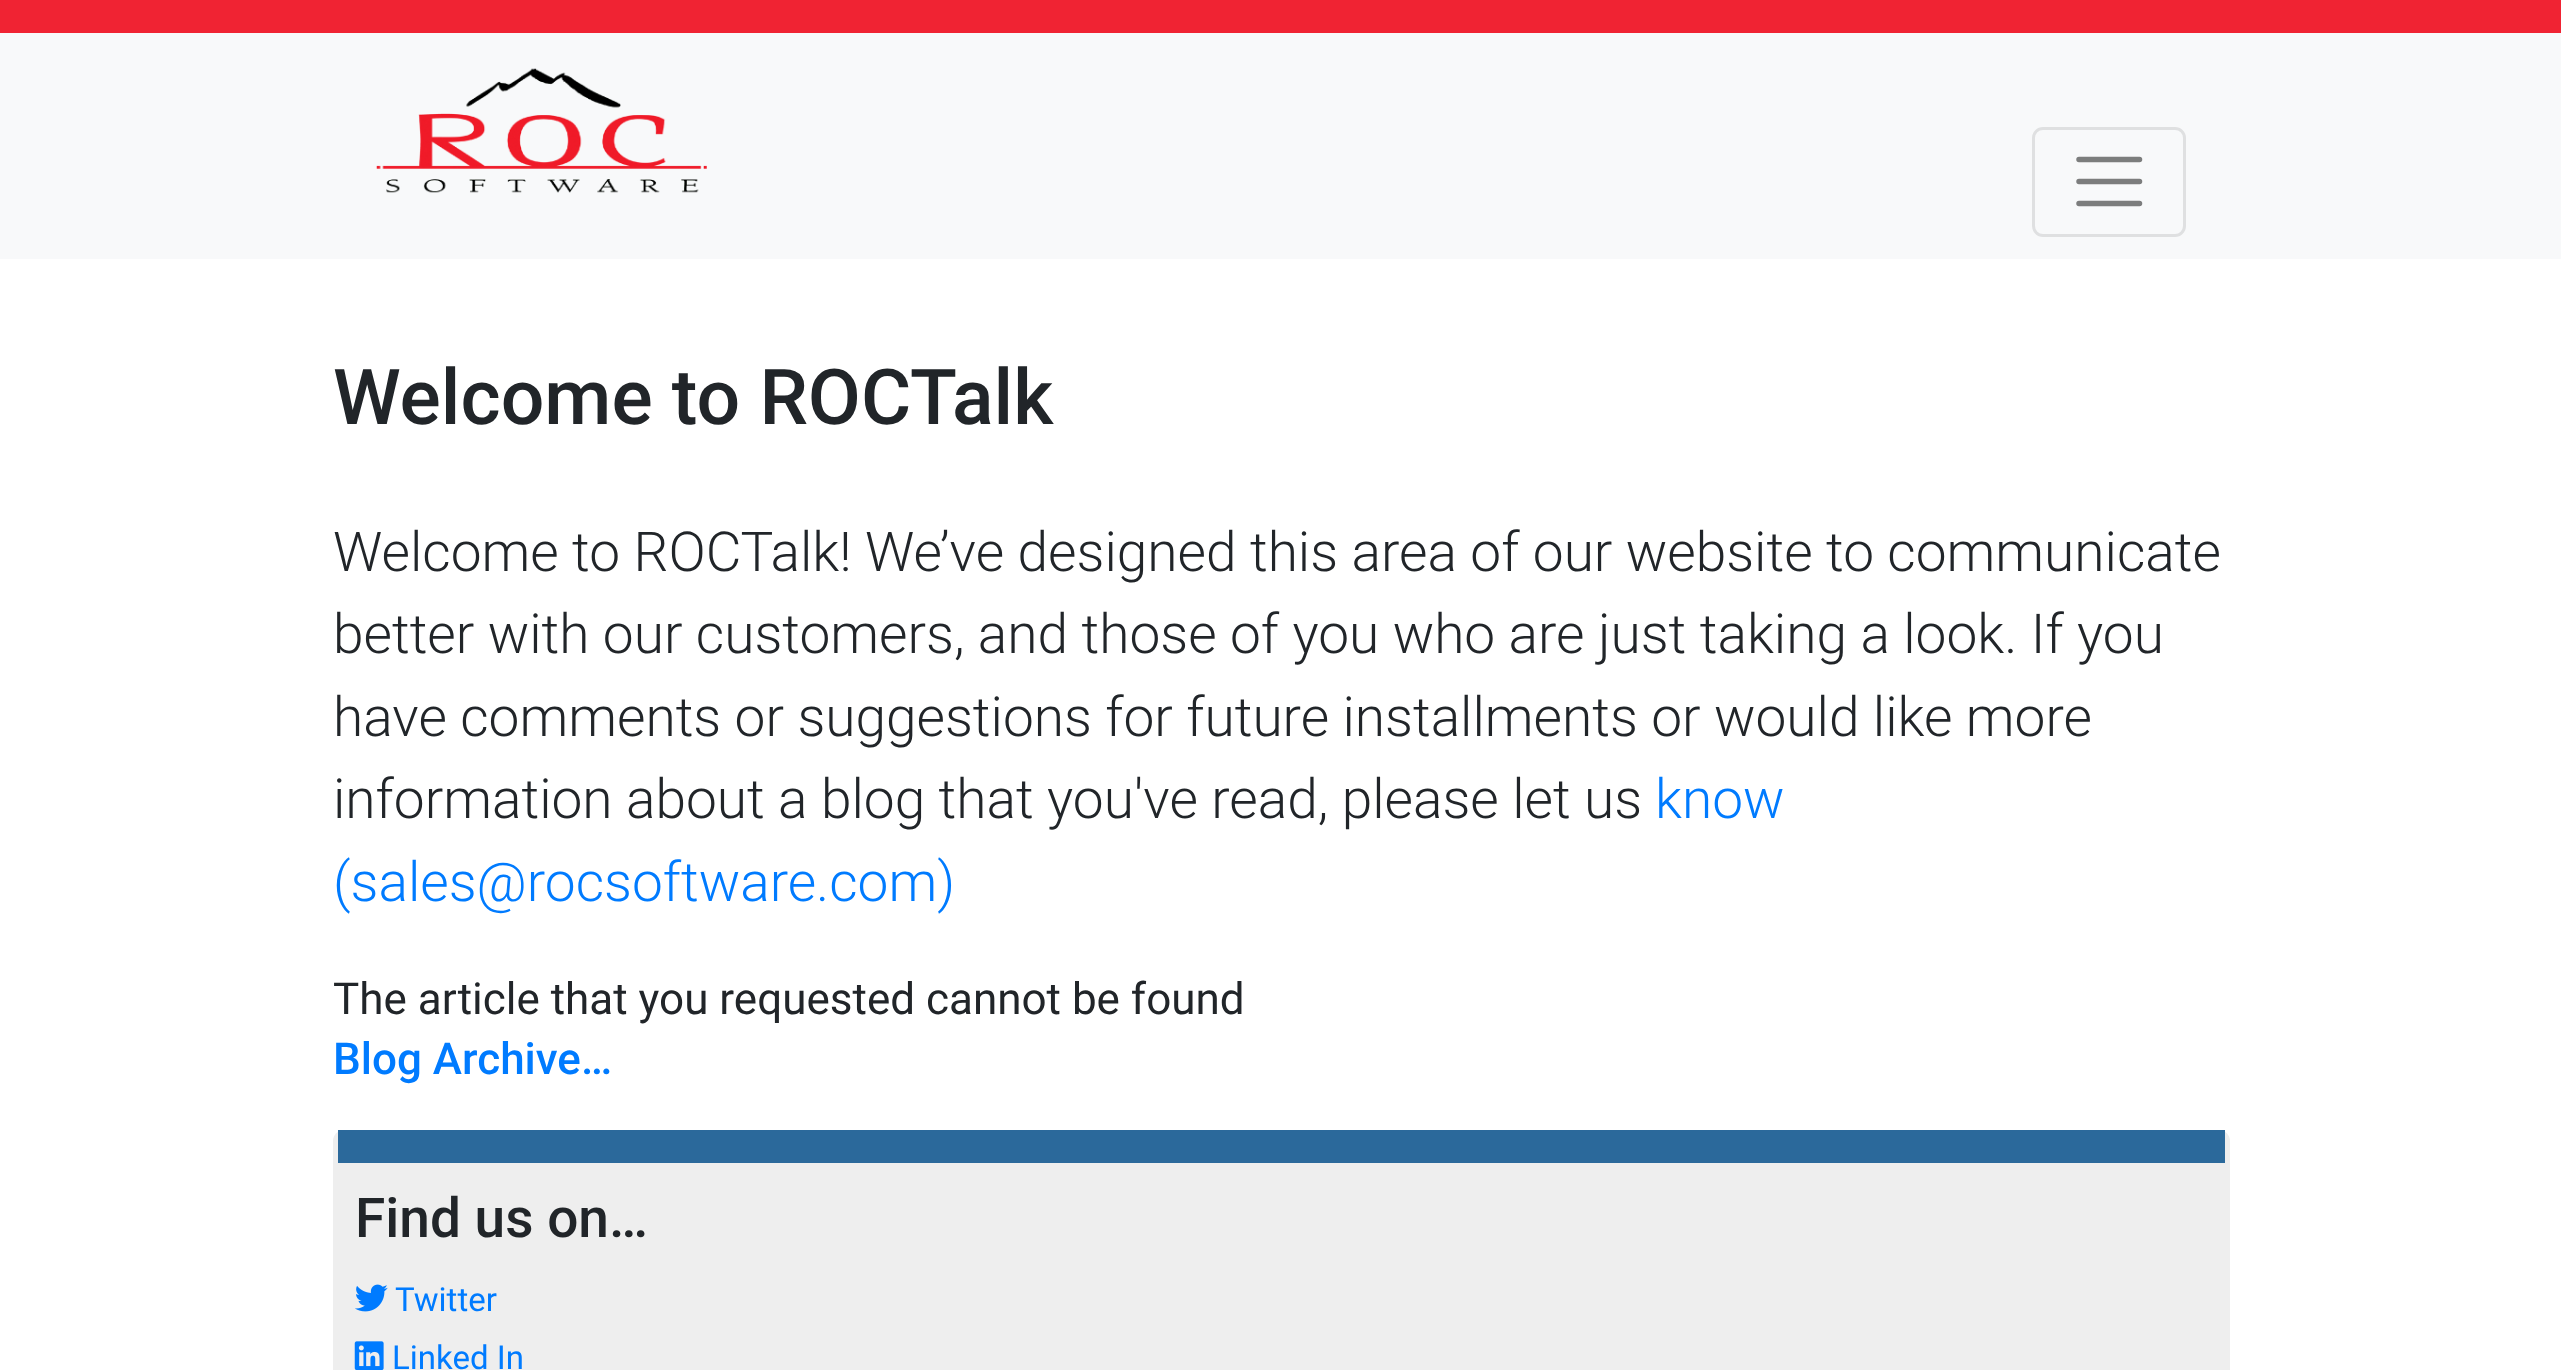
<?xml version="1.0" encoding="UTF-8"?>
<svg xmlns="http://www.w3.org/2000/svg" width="2561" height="1370">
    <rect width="100%" height="100%" fill="#FFFFFF"/>
    <rect x="0" y="33" width="2561" height="226" fill="#F8F9FA"/>
    <rect x="0" y="0" width="2561" height="33" fill="#F02333"/>
    <image x="376" y="68" width="331" height="125" href="img_01.png"/>
    <rect x="2033.5" y="128.5" width="151" height="107" rx="9.5" fill="none" stroke="#DFE0E1" stroke-width="3"/>
    <path d="M 2079 159.5 H 2139.5 M 2079 181.5 H 2139.5 M 2079 203.5 H 2139.5" fill="none" stroke="#7C7D7D" stroke-width="5.5" stroke-linecap="round"/>
    <text x="333" y="424" font-family="Roboto" font-size="77" font-weight="500" fill="#212529">Welcome to ROCTalk</text>
    <text font-family="Roboto" font-size="55" font-weight="300" fill="#212529">
        <tspan x="333" y="571">Welcome to ROCTalk! We’ve designed this area of our website to communicate</tspan>
        <tspan x="333" y="653">better with our customers, and those of you who are just taking a look. If you</tspan>
        <tspan x="333" y="736">have comments or suggestions for future installments or would like more</tspan>
        <tspan x="333" y="818">information about a blog that you've read, please let us</tspan>
    </text>
    <text x="1655" y="818" font-family="Roboto" font-size="55" font-weight="300" fill="#007BFF">know</text>
    <text x="333" y="901" font-family="Roboto" font-size="55" font-weight="300" fill="#007BFF">(sales@rocsoftware.com)</text>
    <text x="333" y="1014" font-family="Roboto" font-size="44" fill="#212529">The article that you requested cannot be found</text>
    <text x="333" y="1074" font-family="Roboto" font-size="44" font-weight="500" fill="#007BFF">Blog Archive…</text>
    <rect x="333" y="1130" width="1897" height="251" rx="11" fill="#EEEEEE"/>
    <rect x="338" y="1130" width="1887" height="33" fill="#2B699B"/>
    <text x="355" y="1237" font-family="Roboto" font-size="55" font-weight="500" fill="#212529">Find us on…</text>
    <image x="355" y="1284" width="33" height="28" href="img_02.png"/>
    <text x="395" y="1311" font-family="Roboto" font-size="33" fill="#007BFF">Twitter</text>
    <image x="354" y="1341" width="30" height="29" href="img_03.png"/>
    <text x="392" y="1369" font-family="Roboto" font-size="33" fill="#007BFF">Linked In</text>
</svg>
